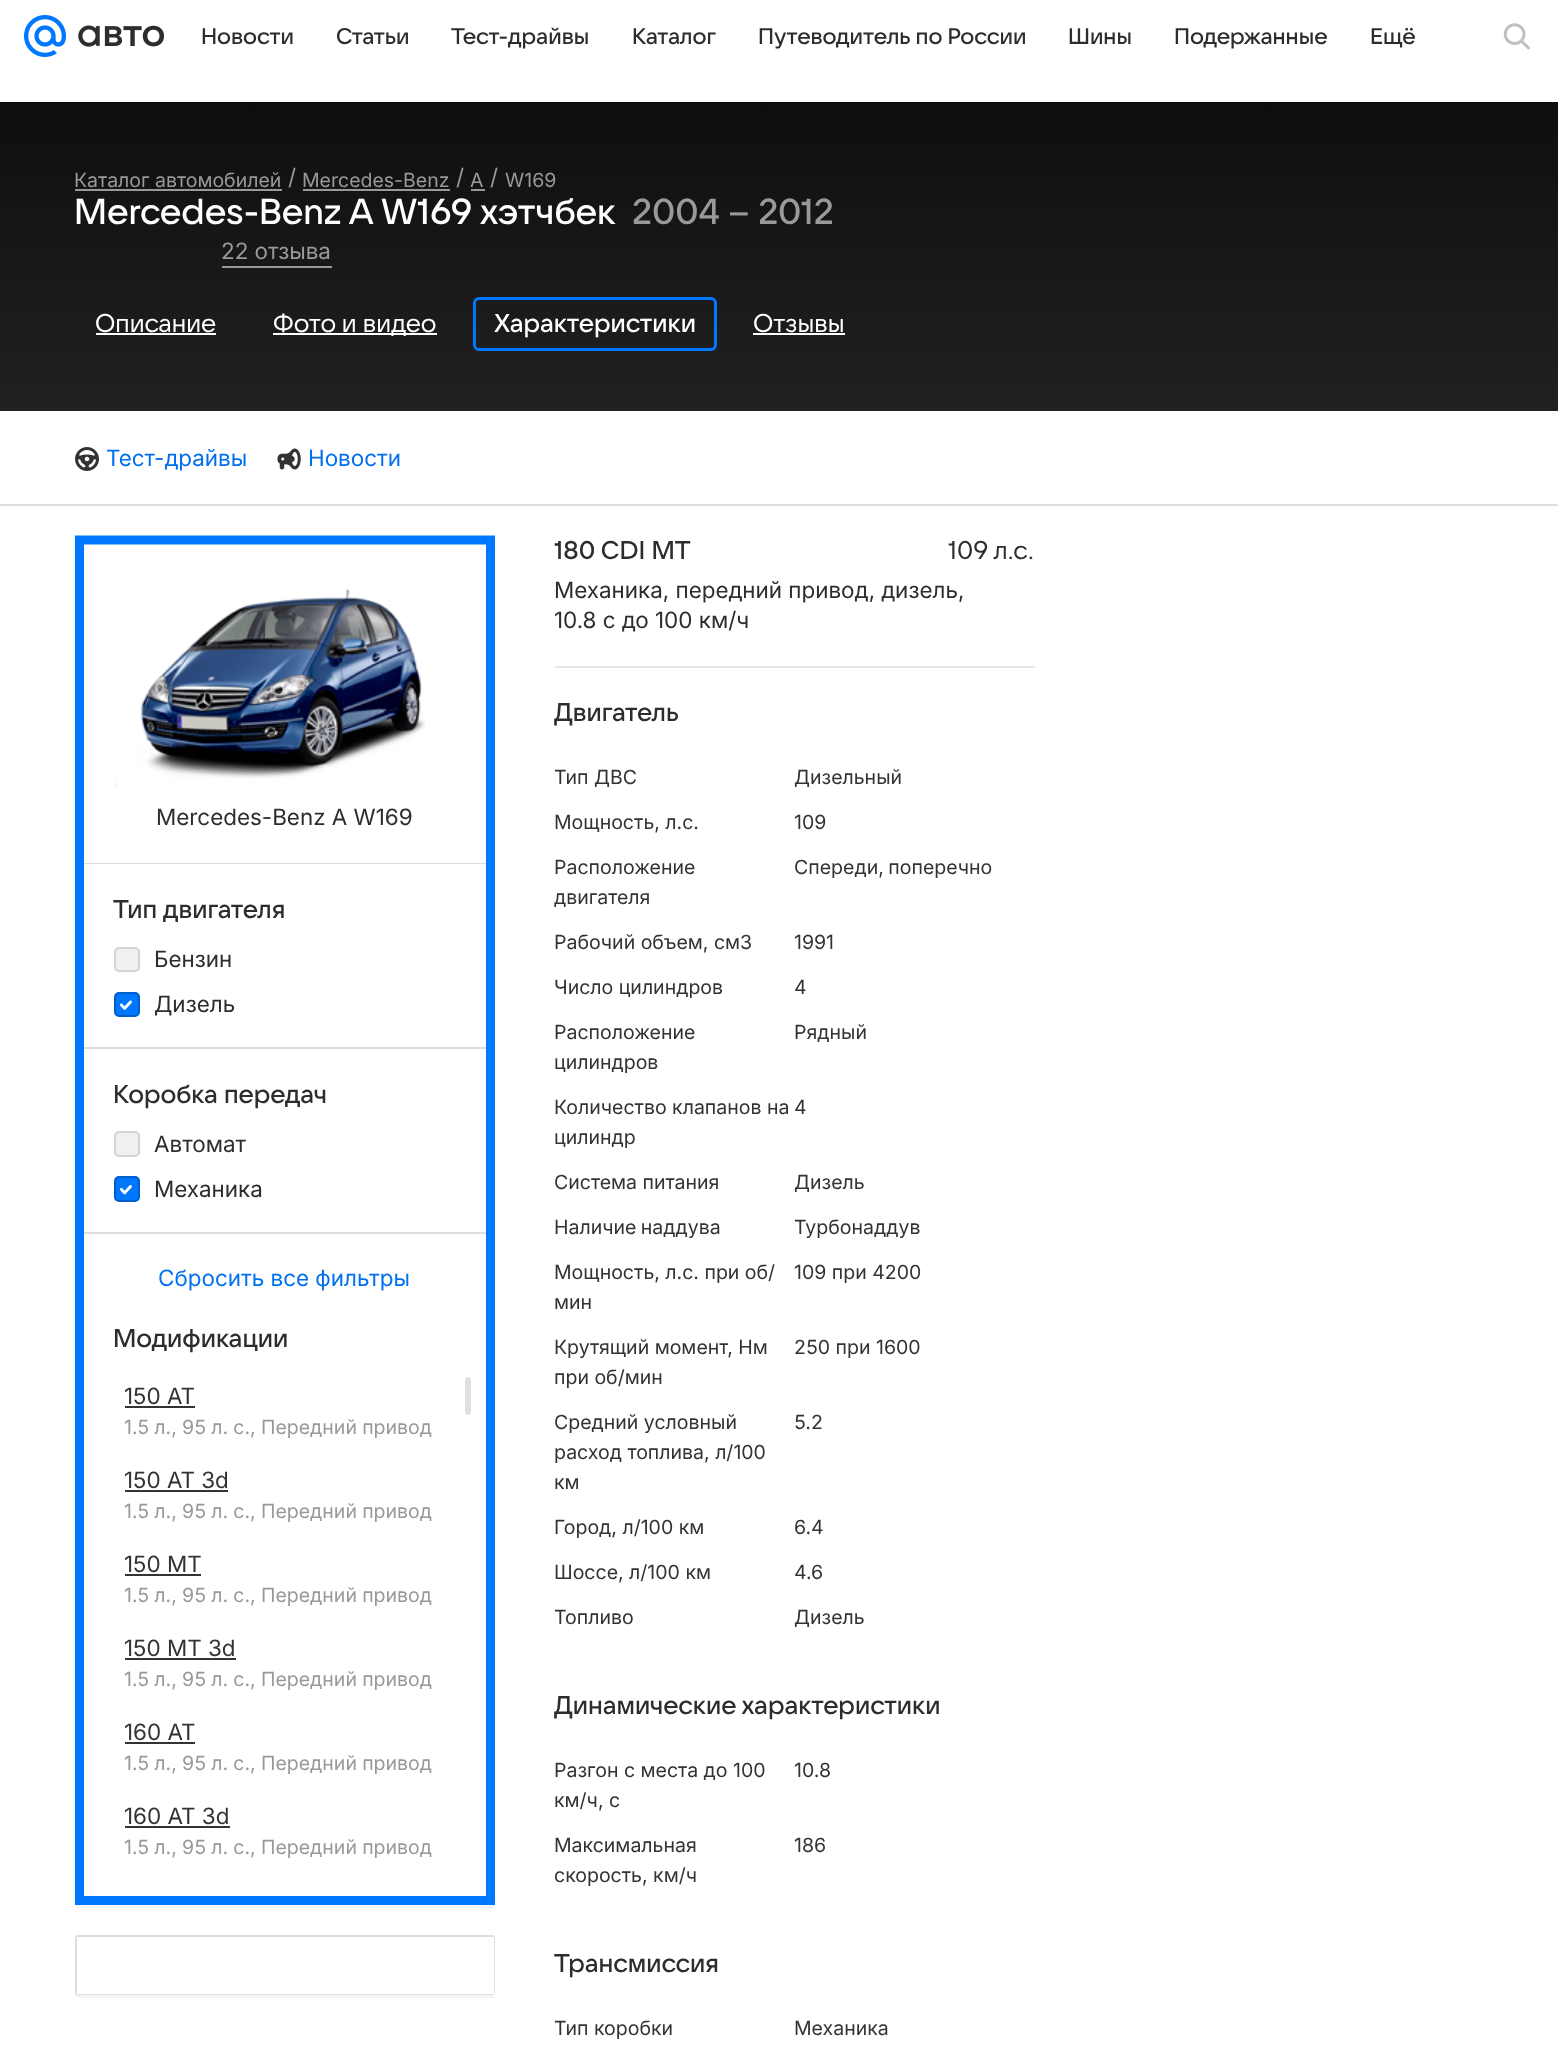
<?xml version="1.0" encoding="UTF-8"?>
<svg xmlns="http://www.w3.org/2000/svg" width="1558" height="2051">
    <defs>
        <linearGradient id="g1" gradientUnits="userSpaceOnUse" x1="779" y1="102" x2="779" y2="411"><stop offset="0" stop-color="#0E0E0E"/><stop offset="1" stop-color="#212121"/></linearGradient>
    </defs>
    <rect width="100%" height="100%" fill="#FFFFFF"/>
    <image x="24" y="15" width="42" height="42" href="img_01.png"/>
    <image x="78" y="25" width="87" height="22" href="img_02.png"/>
    <text x="201" y="44" font-family="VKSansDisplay" font-size="22.5" font-weight="500" fill="#2C2D2E">Новости</text>
    <text x="336" y="44" font-family="VKSansDisplay" font-size="22.5" font-weight="500" fill="#2C2D2E">Статьи</text>
    <text x="451" y="44" font-family="VKSansDisplay" font-size="22.5" font-weight="500" fill="#2C2D2E">Тест-драйвы</text>
    <text x="632" y="44" font-family="VKSansDisplay" font-size="22.5" font-weight="500" fill="#2C2D2E">Каталог</text>
    <text x="758" y="44" font-family="VKSansDisplay" font-size="22.5" font-weight="500" fill="#2C2D2E">Путеводитель по России</text>
    <text x="1068" y="44" font-family="VKSansDisplay" font-size="22.5" font-weight="500" fill="#2C2D2E">Шины</text>
    <text x="1174" y="44" font-family="VKSansDisplay" font-size="22.5" font-weight="500" fill="#2C2D2E">Подержанные</text>
    <text x="1370" y="44" font-family="VKSansDisplay" font-size="22.5" font-weight="500" fill="#2C2D2E">Ещё</text>
    <image x="1503" y="23" width="27" height="27" href="img_03.png"/>
    <rect x="0" y="102" width="1558" height="309" fill="url(#g1)"/>
    <text x="74" y="187" font-family="'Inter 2'" font-size="19.5" fill="#999999">Каталог автомобилей</text>
    <rect x="75" y="189" width="207" height="2" fill="#999999"/>
    <text x="288" y="185" font-family="Inter" font-size="22.5" fill="#999999">/</text>
    <text x="302" y="187" font-family="'Inter 2'" font-size="19.5" fill="#999999">Mercedes-Benz</text>
    <rect x="303" y="189" width="147" height="2" fill="#999999"/>
    <text x="456" y="185" font-family="Inter" font-size="22.5" fill="#999999">/</text>
    <text x="470" y="187" font-family="'Inter 2'" font-size="19.5" fill="#999999">A</text>
    <rect x="471" y="189" width="14" height="2" fill="#999999"/>
    <text x="490" y="185" font-family="Inter" font-size="22.5" fill="#999999">/</text>
    <text x="505" y="187" font-family="'Inter 2'" font-size="19.5" fill="#999999">W169</text>
    <text x="74" y="224" font-family="VKSansDisplay" font-size="36" font-weight="500" fill="#FFFFFF">Mercedes-Benz A W169 хэтчбек</text>
    <text x="632" y="224" font-family="VKSansDisplay" font-size="36" font-weight="500" fill="#999999">2004 – 2012</text>
    <text x="221" y="259" font-family="Inter" font-size="22.5" fill="#999999">22 отзыва</text>
    <rect x="222" y="266" width="110" height="2" fill="#999999"/>
    <text x="95" y="332" font-family="VKSansDisplay" font-size="25.5" fill="#FFFFFF">Описание</text>
    <rect x="96" y="333" width="120" height="2" fill="#FFFFFF"/>
    <rect x="273" y="333" width="164" height="2" fill="#FFFFFF"/>
    <text x="273" y="332" font-family="VKSansDisplay" font-size="25.5" fill="#FFFFFF">Фото и видео</text>
    <rect x="474.5" y="298.5" width="241" height="51" rx="4.5" fill="none" stroke="#0077FF" stroke-width="3"/>
    <text x="494" y="332" font-family="VKSansDisplay" font-size="25.5" font-weight="500" fill="#FFFFFF">Характеристики</text>
    <text x="753" y="332" font-family="VKSansDisplay" font-size="25.5" fill="#FFFFFF">Отзывы</text>
    <rect x="753" y="333" width="92" height="2" fill="#FFFFFF"/>
    <rect x="0" y="504" width="1558" height="2" fill="#DEDEDE"/>
    <image x="75" y="447" width="24" height="24" href="img_04.png"/>
    <text x="106" y="466" font-family="Inter" font-size="22.5" fill="#0070F0">Тест-драйвы</text>
    <image x="277" y="448" width="24" height="22" href="img_05.png"/>
    <text x="308" y="466" font-family="Inter" font-size="22.5" fill="#0070F0">Новости</text>
    <path d="M 75 1902 C 75 1904 75 1908 78 1908 H 492 C 495 1908 495 1904 495 1902 C 495 1904 494 1905 492 1905 H 78 C 76 1905 75 1904 75 1902 Z" fill="#F5F5F5"/>
    <path d="M 79.5 540 H 490.5 V 1900.5 H 79.5 Z" fill="none" stroke="#0077FF" stroke-width="9"/>
    <rect x="84" y="863" width="402" height="1" fill="#DEDEDE"/>
    <image x="114" y="588" width="312" height="200" href="img_06.png"/>
    <text x="156" y="825" font-family="Inter" font-size="22.5" fill="#2C2D2E">Mercedes-Benz A W169</text>
    <rect x="84" y="1047" width="402" height="2" fill="#DEDEDE"/>
    <text x="113" y="918" font-family="VKSansDisplay" font-size="25.5" font-weight="500" fill="#2C2D2E">Тип двигателя</text>
    <rect x="115" y="948" width="24" height="23" rx="4" fill="#F1F1F1" stroke="#D4D4D4" stroke-width="2"/>
    <text x="154" y="967" font-family="Inter" font-size="22.5" fill="#2C2D2E">Бензин</text>
    <rect x="115" y="993" width="24" height="23" rx="4" fill="#0077FF" stroke="#005FCC" stroke-width="2"/>
    <image x="120" y="1000" width="12" height="10" href="img_07.png"/>
    <text x="154" y="1012" font-family="Inter" font-size="22.5" fill="#2C2D2E">Дизель</text>
    <rect x="84" y="1232" width="402" height="2" fill="#DEDEDE"/>
    <text x="113" y="1103" font-family="VKSansDisplay" font-size="25.5" font-weight="500" fill="#2C2D2E">Коробка передач</text>
    <rect x="115" y="1132" width="24" height="24" rx="4" fill="#F1F1F1" stroke="#D4D4D4" stroke-width="2"/>
    <text x="154" y="1152" font-family="Inter" font-size="22.5" fill="#2C2D2E">Автомат</text>
    <rect x="115" y="1177" width="24" height="24" rx="4" fill="#0077FF" stroke="#005FCC" stroke-width="2"/>
    <image x="120" y="1185" width="12" height="10" href="img_08.png"/>
    <text x="154" y="1197" font-family="Inter" font-size="22.5" fill="#2C2D2E">Механика</text>
    <text x="158" y="1286" font-family="Inter" font-size="22.5" fill="#0070F0">Сбросить все фильтры</text>
    <text x="113" y="1347" font-family="VKSansDisplay" font-size="25.5" font-weight="500" fill="#2C2D2E">Модификации</text>
    <text x="124" y="1404" font-family="Inter" font-size="22.5" fill="#333333">150 AT</text>
    <rect x="125" y="1406" width="70" height="2" fill="#333333"/>
    <text x="124" y="1434" word-spacing="-0.25" font-family="'Inter 2'" font-size="19.5" fill="#999999">1.5 л., 95 л. с., Передний привод</text>
    <text x="124" y="1488" font-family="Inter" font-size="22.5" fill="#333333">150 AT 3d</text>
    <rect x="125" y="1490" width="103" height="2" fill="#333333"/>
    <text x="124" y="1518" word-spacing="-0.25" font-family="'Inter 2'" font-size="19.5" fill="#999999">1.5 л., 95 л. с., Передний привод</text>
    <text x="124" y="1572" font-family="Inter" font-size="22.5" fill="#333333">150 MT</text>
    <rect x="125" y="1574" width="76" height="2" fill="#333333"/>
    <text x="124" y="1602" word-spacing="-0.25" font-family="'Inter 2'" font-size="19.5" fill="#999999">1.5 л., 95 л. с., Передний привод</text>
    <text x="124" y="1656" font-family="Inter" font-size="22.5" fill="#333333">150 MT 3d</text>
    <rect x="125" y="1658" width="111" height="2" fill="#333333"/>
    <text x="124" y="1686" word-spacing="-0.25" font-family="'Inter 2'" font-size="19.5" fill="#999999">1.5 л., 95 л. с., Передний привод</text>
    <text x="124" y="1740" font-family="Inter" font-size="22.5" fill="#333333">160 AT</text>
    <rect x="125" y="1742" width="70" height="2" fill="#333333"/>
    <text x="124" y="1770" word-spacing="-0.25" font-family="'Inter 2'" font-size="19.5" fill="#999999">1.5 л., 95 л. с., Передний привод</text>
    <text x="124" y="1824" font-family="Inter" font-size="22.5" fill="#333333">160 AT 3d</text>
    <rect x="125" y="1826" width="105" height="2" fill="#333333"/>
    <text x="124" y="1854" word-spacing="-0.25" font-family="'Inter 2'" font-size="19.5" fill="#999999">1.5 л., 95 л. с., Передний привод</text>
    <rect x="465" y="1377" width="6" height="38" rx="3" fill="#E0E0E0"/>
    <path d="M 75 1992 C 75 1994 75 1998 78 1998 H 492 C 495 1998 495 1994 495 1992 C 495 1994 494 1995 492 1995 H 78 C 76 1995 75 1994 75 1992 Z" fill="#F5F5F5"/>
    <rect x="76" y="1936" width="418" height="58" rx="2" fill="none" stroke="#DEDEDE" stroke-width="2"/>
    <rect x="77" y="1937" width="417" height="57" fill="#FFFFFF"/>
    <text x="554" y="559" font-family="VKSansDisplay" font-size="25.5" font-weight="500" fill="#2C2D2E">180 CDI MT</text>
    <text x="948" y="559" font-family="VKSansDisplay" font-size="25.5" fill="#2C2D2E">109 л.с.</text>
    <text font-family="Inter" font-size="22.5" fill="#2C2D2E">
        <tspan x="554" y="598">Механика, передний привод, дизель,</tspan>
        <tspan x="554" y="628">10.8 с до 100 км/ч</tspan>
    </text>
    <rect x="555" y="666" width="480" height="2" fill="#E5E5E5"/>
    <text x="554" y="721" font-family="VKSansDisplay" font-size="25.5" font-weight="500" fill="#2C2D2E">Двигатель</text>
    <text x="554" y="784" font-family="'Inter 2'" font-size="19.5" fill="#333333">Тип ДВС</text>
    <text x="794" y="784" font-family="'Inter 2'" font-size="19.5" fill="#333333">Дизельный</text>
    <text x="554" y="829" font-family="'Inter 2'" font-size="19.5" fill="#333333">Мощность, л.с.</text>
    <text x="794" y="829" font-family="'Inter 2'" font-size="19.5" fill="#333333">109</text>
    <text font-family="'Inter 2'" font-size="19.5" fill="#333333">
        <tspan x="554" y="874">Расположение</tspan>
        <tspan x="554" y="904">двигателя</tspan>
    </text>
    <text x="794" y="874" word-spacing="-1" font-family="'Inter 2'" font-size="19.5" fill="#333333">Спереди, поперечно</text>
    <text x="554" y="949" font-family="'Inter 2'" font-size="19.5" fill="#333333">Рабочий объем, см</text>
    <text x="740" y="949" font-family="'Inter 2'" font-size="19.5" fill="#333333">3</text>
    <text x="794" y="949" font-family="'Inter 2'" font-size="19.5" fill="#333333">1991</text>
    <text x="554" y="994" font-family="'Inter 2'" font-size="19.5" fill="#333333">Число цилиндров</text>
    <text x="794" y="994" font-family="'Inter 2'" font-size="19.5" fill="#333333">4</text>
    <text font-family="'Inter 2'" font-size="19.5" fill="#333333">
        <tspan x="554" y="1039">Расположение</tspan>
        <tspan x="554" y="1069">цилиндров</tspan>
    </text>
    <text x="794" y="1039" font-family="'Inter 2'" font-size="19.5" fill="#333333">Рядный</text>
    <text font-family="'Inter 2'" font-size="19.5" fill="#333333">
        <tspan x="554" y="1114">Количество клапанов на</tspan>
        <tspan x="554" y="1144">цилиндр</tspan>
    </text>
    <text x="794" y="1114" font-family="'Inter 2'" font-size="19.5" fill="#333333">4</text>
    <text x="554" y="1189" font-family="'Inter 2'" font-size="19.5" fill="#333333">Система питания</text>
    <text x="794" y="1189" font-family="'Inter 2'" font-size="19.5" fill="#333333">Дизель</text>
    <text x="554" y="1234" word-spacing="-1" font-family="'Inter 2'" font-size="19.5" fill="#333333">Наличие наддува</text>
    <text x="794" y="1234" font-family="'Inter 2'" font-size="19.5" fill="#333333">Турбонаддув</text>
    <text font-family="'Inter 2'" font-size="19.5" fill="#333333">
        <tspan x="554" y="1279">Мощность, л.с. при об/</tspan>
        <tspan x="554" y="1309">мин</tspan>
    </text>
    <text x="794" y="1279" font-family="'Inter 2'" font-size="19.5" fill="#333333">109 при 4200</text>
    <text font-family="'Inter 2'" font-size="19.5" fill="#333333">
        <tspan x="554" y="1354">Крутящий момент, Нм</tspan>
        <tspan x="554" y="1384">при об/мин</tspan>
    </text>
    <text x="794" y="1354" font-family="'Inter 2'" font-size="19.5" fill="#333333">250 при 1600</text>
    <text font-family="'Inter 2'" font-size="19.5" fill="#333333">
        <tspan x="554" y="1429">Средний условный</tspan>
        <tspan x="554" y="1459">расход топлива, л/100</tspan>
        <tspan x="554" y="1489">км</tspan>
    </text>
    <text x="794" y="1429" font-family="'Inter 2'" font-size="19.5" fill="#333333">5.2</text>
    <text x="554" y="1534" font-family="'Inter 2'" font-size="19.5" fill="#333333">Город, л/100 км</text>
    <text x="794" y="1534" font-family="'Inter 2'" font-size="19.5" fill="#333333">6.4</text>
    <text x="554" y="1579" font-family="'Inter 2'" font-size="19.5" fill="#333333">Шоссе, л/100 км</text>
    <text x="794" y="1579" font-family="'Inter 2'" font-size="19.5" fill="#333333">4.6</text>
    <text x="554" y="1624" font-family="'Inter 2'" font-size="19.5" fill="#333333">Топливо</text>
    <text x="794" y="1624" font-family="'Inter 2'" font-size="19.5" fill="#333333">Дизель</text>
    <text x="554" y="1714" font-family="VKSansDisplay" font-size="25.5" font-weight="500" fill="#2C2D2E">Динамические характеристики</text>
    <text font-family="'Inter 2'" font-size="19.5" fill="#333333">
        <tspan x="554" y="1777">Разгон с места до 100</tspan>
        <tspan x="554" y="1807">км/ч, с</tspan>
    </text>
    <text x="794" y="1777" font-family="'Inter 2'" font-size="19.5" fill="#333333">10.8</text>
    <text font-family="'Inter 2'" font-size="19.5" fill="#333333">
        <tspan x="554" y="1852">Максимальная</tspan>
        <tspan x="554" y="1882">скорость, км/ч</tspan>
    </text>
    <text x="794" y="1852" font-family="'Inter 2'" font-size="19.5" fill="#333333">186</text>
    <text x="554" y="1972" font-family="VKSansDisplay" font-size="25.5" font-weight="500" fill="#2C2D2E">Трансмиссия</text>
    <text x="554" y="2035" font-family="'Inter 2'" font-size="19.5" fill="#333333">Тип коробки</text>
    <text x="794" y="2035" font-family="'Inter 2'" font-size="19.5" fill="#333333">Механика</text>
</svg>
